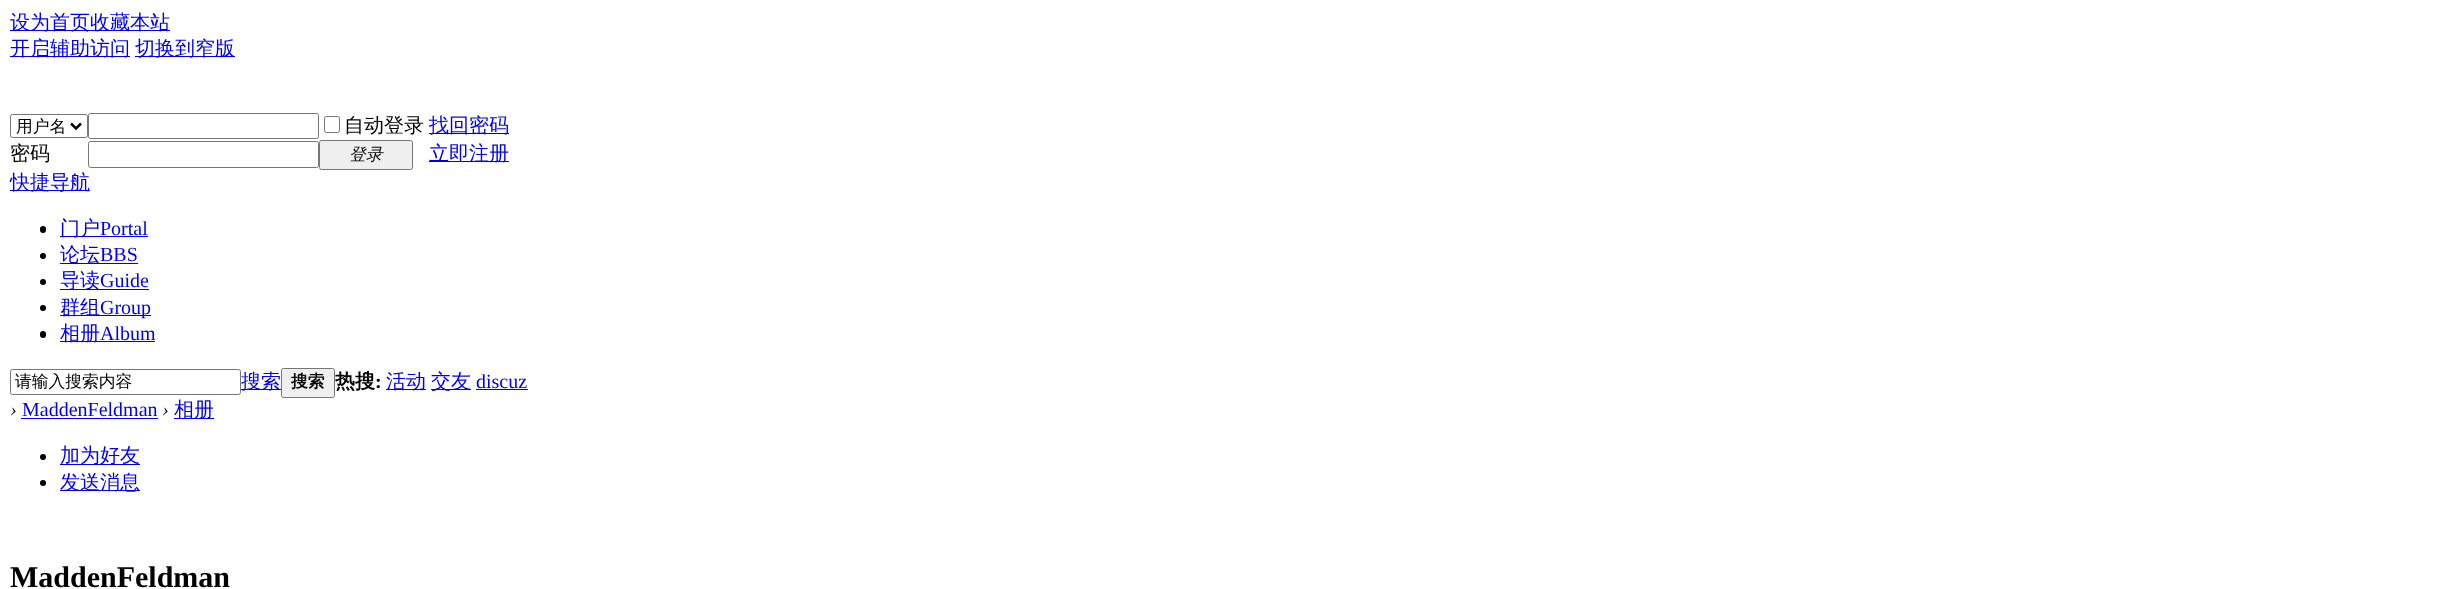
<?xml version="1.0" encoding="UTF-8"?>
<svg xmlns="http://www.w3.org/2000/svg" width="2445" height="589">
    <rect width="100%" height="100%" fill="#FFFFFF"/>
    <rect x="10" y="30" width="160" height="1" fill="#0000EE"/>
    <text x="10" y="29" font-family="WenQuanYi Zen Hei" font-size="20" font-weight="500" fill="#0000EE">设为首页收藏本站</text>
    <rect x="10" y="56" width="120" height="1" fill="#0000EE"/>
    <text x="10" y="55" font-family="WenQuanYi Zen Hei" font-size="20" font-weight="500" fill="#0000EE">开启辅助访问</text>
    <rect x="135" y="56" width="100" height="1" fill="#0000EE"/>
    <text x="135" y="55" font-family="WenQuanYi Zen Hei" font-size="20" font-weight="500" fill="#0000EE">切换到窄版</text>
    <rect x="10.5" y="114.5" width="77" height="23" rx="2" fill="none" stroke="#767676"/>
    <path d="M 71 123.5 L 76 128.5 L 81 123.5" fill="none" stroke="#000000" stroke-width="2.5"/>
    <text x="16" y="132" font-family="WenQuanYi Zen Hei" font-size="16.75" font-weight="500" fill="#000000">用户名</text>
    <rect x="88.5" y="113.5" width="230" height="25" rx="2" fill="none" stroke="#767676"/>
    <rect x="324.5" y="116.5" width="15" height="16" rx="2" fill="none" stroke="#767676"/>
    <text x="344" y="132" font-family="WenQuanYi Zen Hei" font-size="20" font-weight="500" fill="#000000">自动登录</text>
    <rect x="429" y="133" width="80" height="1" fill="#0000EE"/>
    <text x="429" y="132" font-family="WenQuanYi Zen Hei" font-size="20" font-weight="500" fill="#0000EE">找回密码</text>
    <text x="10" y="160" font-family="WenQuanYi Zen Hei" font-size="20" font-weight="500" fill="#000000">密码</text>
    <rect x="88.5" y="141.5" width="230" height="26" rx="2" fill="none" stroke="#767676"/>
    <rect x="319.5" y="140.5" width="93" height="29" rx="2" fill="#EFEFEF" stroke="#767676"/>
    <text x="349" y="160" font-family="WenQuanYi Zen Hei" font-size="16.75" font-weight="500" font-style="italic" fill="#000000">登录</text>
    <rect x="429" y="161" width="80" height="1" fill="#0000EE"/>
    <text x="429" y="160" font-family="WenQuanYi Zen Hei" font-size="20" font-weight="500" fill="#0000EE">立即注册</text>
    <rect x="10" y="190" width="80" height="1" fill="#0000EE"/>
    <text x="10" y="189" font-family="WenQuanYi Zen Hei" font-size="20" font-weight="500" fill="#0000EE">快捷导航</text>
    <rect x="40" y="226" width="6" height="7" rx="3" fill="#000000"/>
    <rect x="60" y="236" width="88" height="1" fill="#0000EE"/>
    <text x="60" y="235" font-family="WenQuanYi Zen Hei" font-size="20" font-weight="500" fill="#0000EE">门户</text>
    <text x="100" y="235" font-family="Liberation Serif" font-size="20" fill="#0000EE">Portal</text>
    <circle cx="43" cy="256" r="3" fill="#000000"/>
    <rect x="60" y="263" width="78" height="1" fill="#0000EE"/>
    <text x="60" y="261" font-family="WenQuanYi Zen Hei" font-size="20" font-weight="500" fill="#0000EE">论坛</text>
    <text x="100" y="261" font-family="Liberation Serif" font-size="20" fill="#0000EE">BBS</text>
    <circle cx="43" cy="282" r="3" fill="#000000"/>
    <rect x="60" y="289" width="89" height="1" fill="#0000EE"/>
    <text x="60" y="287" font-family="WenQuanYi Zen Hei" font-size="20" font-weight="500" fill="#0000EE">导读</text>
    <text x="100" y="287" font-family="Liberation Serif" font-size="20" fill="#0000EE">Guide</text>
    <circle cx="43" cy="308" r="3" fill="#000000"/>
    <rect x="60" y="315" width="91" height="1" fill="#0000EE"/>
    <text x="60" y="314" font-family="WenQuanYi Zen Hei" font-size="20" font-weight="500" fill="#0000EE">群组</text>
    <text x="100" y="314" font-family="Liberation Serif" font-size="20" fill="#0000EE">Group</text>
    <rect x="40" y="331" width="6" height="7" rx="3" fill="#000000"/>
    <rect x="60" y="341" width="95" height="1" fill="#0000EE"/>
    <text x="60" y="340" font-family="WenQuanYi Zen Hei" font-size="20" font-weight="500" fill="#0000EE">相册</text>
    <text x="100" y="340" font-family="Liberation Serif" font-size="20" fill="#0000EE">Album</text>
    <rect x="10.5" y="369.5" width="230" height="25" rx="2" fill="none" stroke="#767676"/>
    <text x="15" y="387" font-family="WenQuanYi Zen Hei" font-size="16.75" font-weight="500" fill="#000000">请输入搜索内容</text>
    <rect x="241" y="389" width="40" height="1" fill="#0000EE"/>
    <text x="241" y="388" font-family="WenQuanYi Zen Hei" font-size="20" font-weight="500" fill="#0000EE">搜索</text>
    <rect x="281.5" y="368.5" width="53" height="29" rx="2" fill="#EFEFEF" stroke="#767676"/>
    <text x="291" y="387" font-family="WenQuanYi Zen Hei" font-size="16.75" font-weight="700" fill="#000000">搜索</text>
    <text x="335" y="388" font-family="WenQuanYi Zen Hei" font-size="20" font-weight="700" fill="#000000">热搜</text>
    <text x="375" y="388" font-family="Liberation Serif" font-size="20" font-weight="700" fill="#000000">:</text>
    <rect x="386" y="389" width="40" height="1" fill="#0000EE"/>
    <text x="386" y="388" font-family="WenQuanYi Zen Hei" font-size="20" font-weight="500" fill="#0000EE">活动</text>
    <rect x="431" y="389" width="40" height="1" fill="#0000EE"/>
    <text x="431" y="388" font-family="WenQuanYi Zen Hei" font-size="20" font-weight="500" fill="#0000EE">交友</text>
    <text x="476" y="388" font-family="Liberation Serif" font-size="20" fill="#0000EE">discuz</text>
    <rect x="476" y="389" width="52" height="1" fill="#0000EE"/>
    <text x="10" y="416" font-family="Liberation Serif" font-size="20" font-style="italic" fill="#000000">›</text>
    <text x="22" y="416" font-family="Liberation Serif" font-size="20" fill="#0000EE">MaddenFeldman</text>
    <rect x="21" y="418" width="137" height="1" fill="#0000EE"/>
    <text x="162" y="416" font-family="Liberation Serif" font-size="20" font-style="italic" fill="#000000">›</text>
    <rect x="174" y="418" width="40" height="1" fill="#0000EE"/>
    <text x="174" y="416" font-family="WenQuanYi Zen Hei" font-size="20" font-weight="500" fill="#0000EE">相册</text>
    <circle cx="43" cy="457" r="3" fill="#000000"/>
    <rect x="60" y="464" width="80" height="1" fill="#0000EE"/>
    <text x="60" y="462" font-family="WenQuanYi Zen Hei" font-size="20" font-weight="500" fill="#0000EE">加为好友</text>
    <circle cx="43" cy="483" r="3" fill="#000000"/>
    <rect x="60" y="490" width="80" height="1" fill="#0000EE"/>
    <text x="60" y="489" font-family="WenQuanYi Zen Hei" font-size="20" font-weight="500" fill="#0000EE">发送消息</text>
    <text x="10" y="587" font-family="Liberation Serif" font-size="30" font-weight="700" fill="#000000">MaddenFeldman</text>
</svg>
